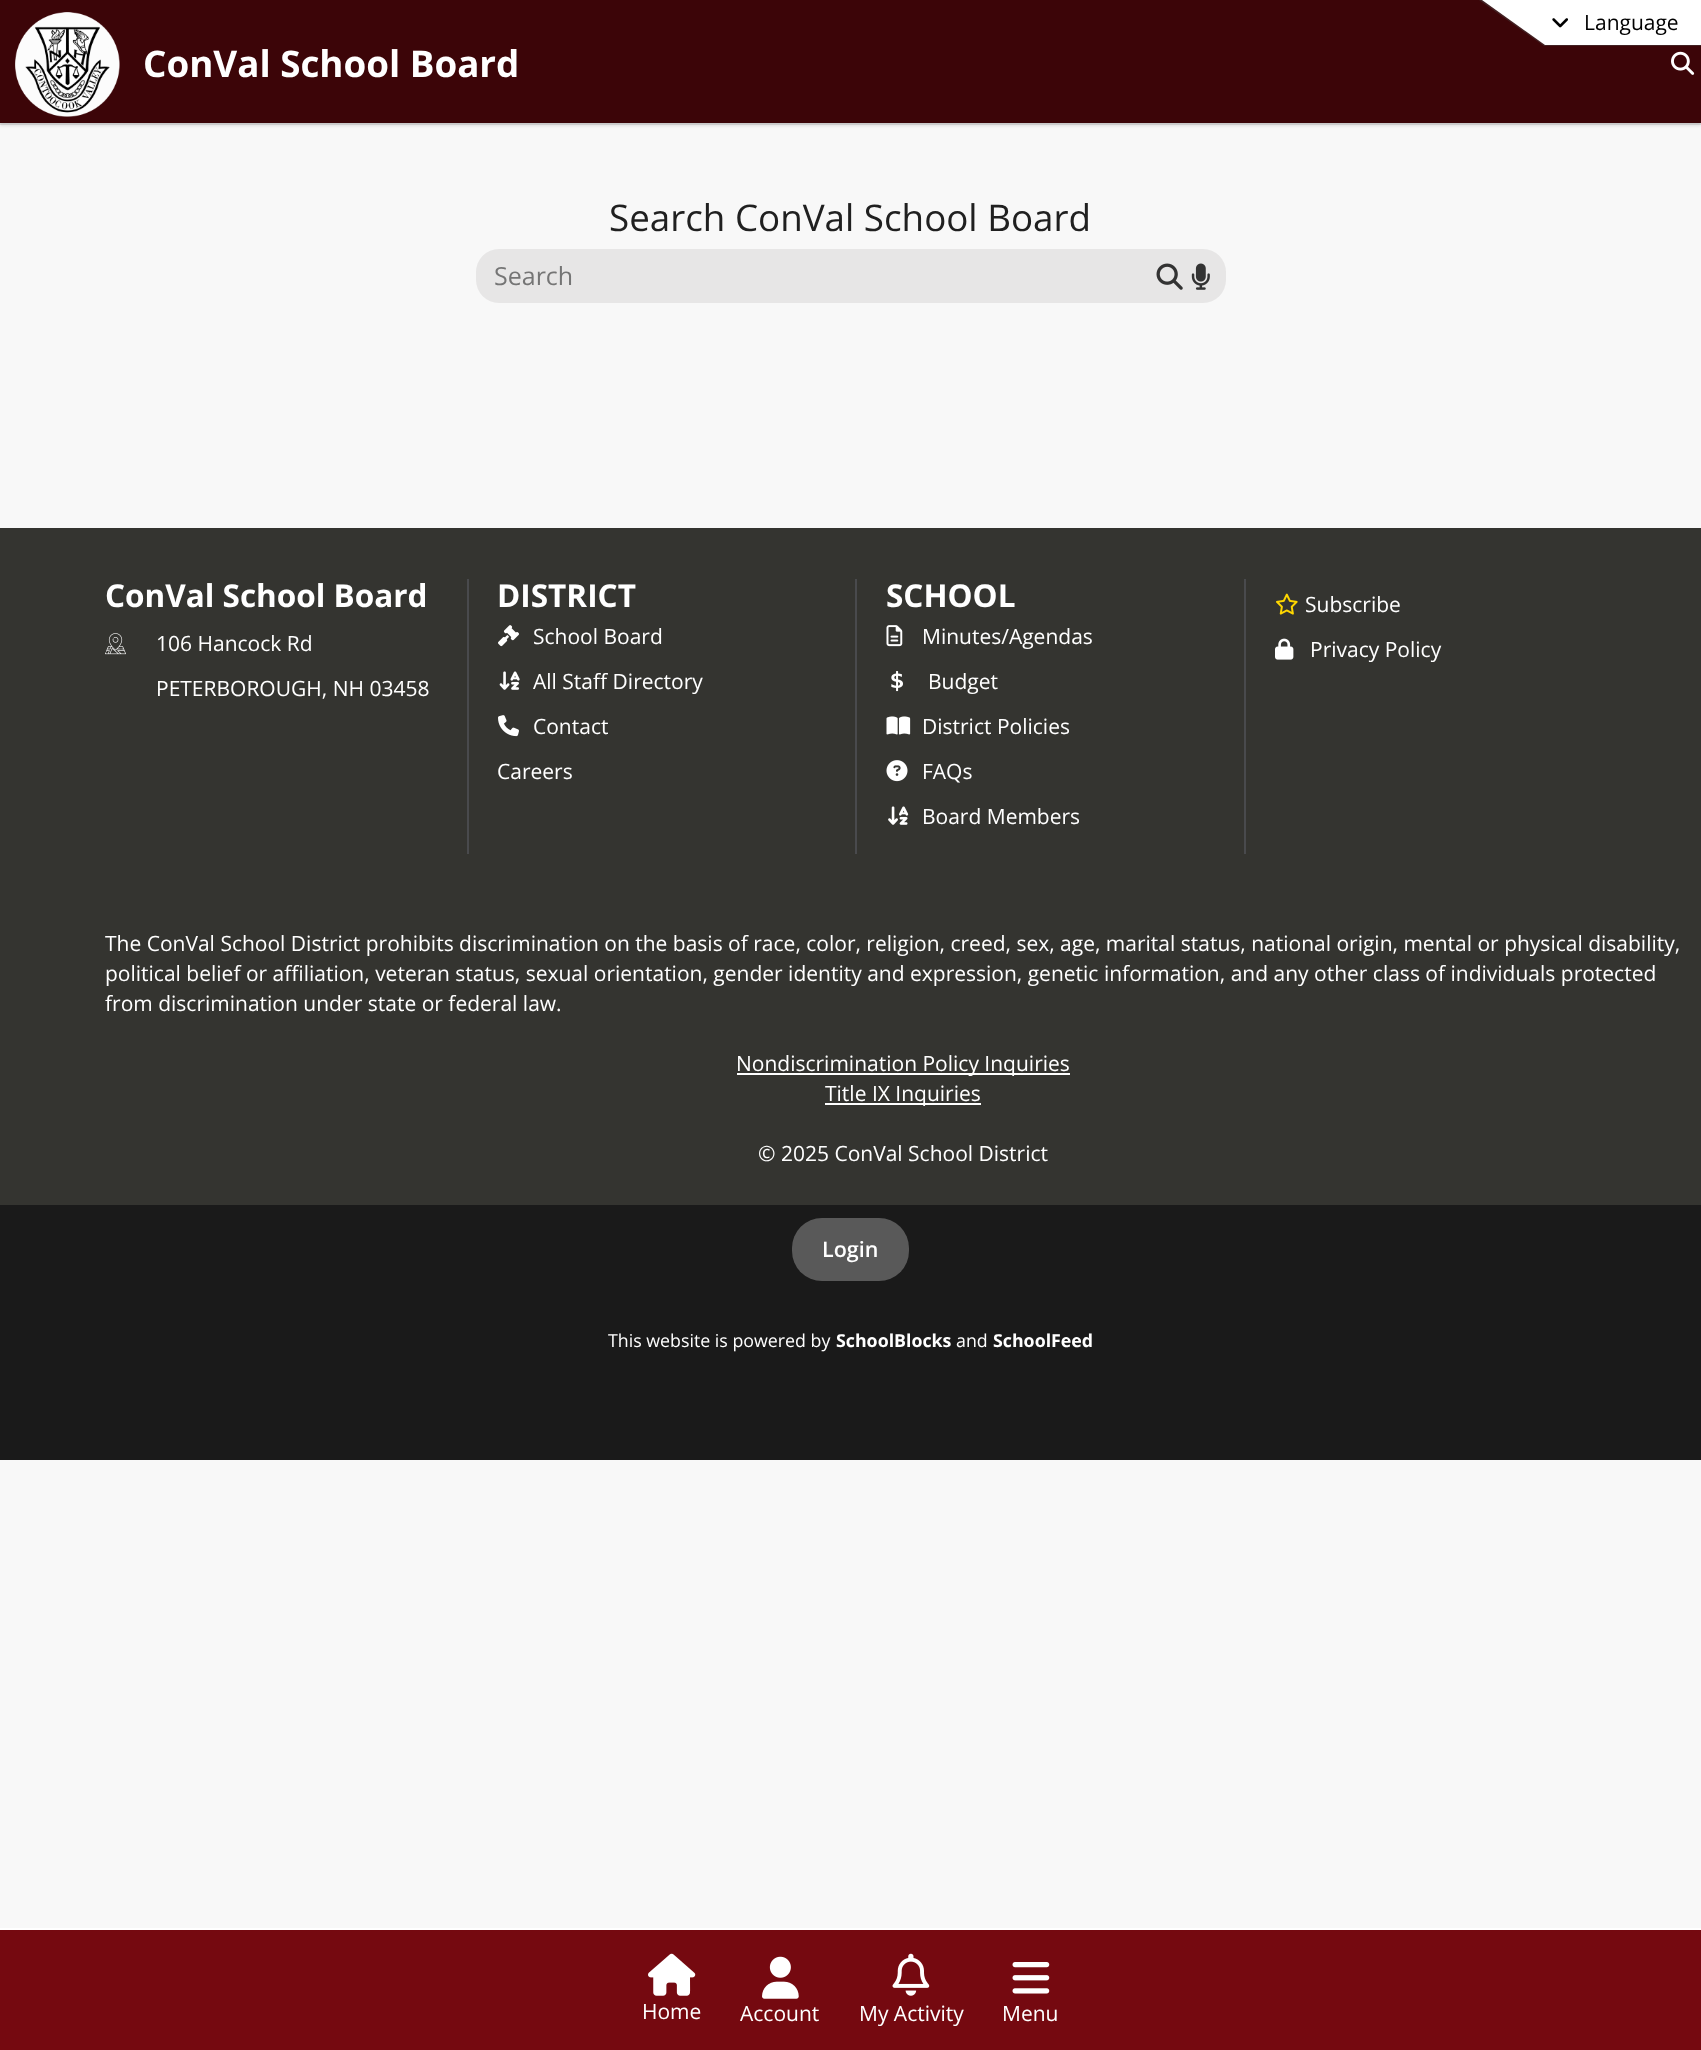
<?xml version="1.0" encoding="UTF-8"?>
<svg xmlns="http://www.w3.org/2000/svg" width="1701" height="2050">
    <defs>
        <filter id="blur1" x="-50%" y="-200%" width="200%" height="500%"><feGaussianBlur stdDeviation="1.5"/></filter>
    </defs>
    <rect width="100%" height="100%" fill="#F8F8F8"/>
    <rect x="0" y="123" width="1701" height="2" fill="#DFDFDF"/>
    <rect x="0" y="3" width="1701" height="123" fill="#000000" fill-opacity="0.1" filter="url(#blur1)"/>
    <rect x="0" y="0" width="1701" height="123" fill="#3C0508"/>
    <path d="M 1479 0 L 1544 46 H 1701 V 0 Z" fill="#422123"/>
    <path d="M 1482 0 L 1545 45 H 1701 V 0 Z" fill="#FFFFFF"/>
    <image x="1552" y="18" width="16" height="10" href="img_01.png"/>
    <text x="1584" y="30" font-family="Open Sans" font-size="21" fill="#000000">Language</text>
    <image x="15" y="12" width="105" height="105" href="img_02.png"/>
    <text x="143" y="77" font-family="Open Sans" font-size="36.75" font-weight="700" fill="#FFFFFF">ConVal School Board</text>
    <image x="1671" y="51" width="24" height="24" href="img_03.png"/>
    <text x="609" y="231" font-family="Open Sans" font-size="36.75" fill="#202020">Search ConVal School Board</text>
    <rect x="476" y="249" width="750" height="54" rx="23" fill="#E7E6E6"/>
    <text x="494" y="285" font-family="Open Sans" font-size="25" fill="#757575">Search</text>
    <image x="1156" y="263" width="27" height="27" href="img_04.png"/>
    <image x="1191" y="263" width="19" height="27" href="img_05.png"/>
    <rect x="0" y="528" width="1701" height="677" fill="#343430"/>
    <text x="105" y="607" font-family="Open Sans" font-size="31.5" font-weight="700" fill="#FFFFFF">ConVal School Board</text>
    <image x="105" y="633" width="21" height="22" href="img_06.png"/>
    <text x="156" y="651" font-family="Open Sans" font-size="21" fill="#FFFFFF">106 Hancock Rd</text>
    <text x="156" y="696" font-family="Open Sans" font-size="21" fill="#FFFFFF">PETERBOROUGH, NH 03458</text>
    <rect x="467" y="579" width="2" height="275" fill="#494A4D"/>
    <text x="497" y="607" font-family="Open Sans" font-size="31.5" font-weight="700" fill="#FFFFFF">DISTRICT</text>
    <image x="498" y="625" width="21" height="22" href="img_07.png"/>
    <text x="533" y="644" font-family="Open Sans" font-size="21" fill="#FFFFFF">School Board</text>
    <image x="499" y="671" width="21" height="19" href="img_08.png"/>
    <text x="533" y="689" font-family="Open Sans" font-size="21" fill="#FFFFFF">All Staff Directory</text>
    <image x="498" y="715" width="21" height="22" href="img_09.png"/>
    <text x="533" y="734" font-family="Open Sans" font-size="21" fill="#FFFFFF">Contact</text>
    <text x="497" y="779" font-family="Open Sans" font-size="21" fill="#FFFFFF">Careers</text>
    <rect x="855" y="579" width="2" height="275" fill="#494A4D"/>
    <text x="886" y="607" font-family="Open Sans" font-size="31.5" font-weight="700" fill="#FFFFFF">SCHOOL</text>
    <image x="886" y="625" width="17" height="22" href="img_10.png"/>
    <text x="922" y="644" font-family="Open Sans" font-size="21" fill="#FFFFFF">Minutes/Agendas</text>
    <image x="891" y="671" width="12" height="21" href="img_11.png"/>
    <text x="928" y="689" font-family="Open Sans" font-size="21" fill="#FFFFFF">Budget</text>
    <image x="886" y="716" width="25" height="19" href="img_12.png"/>
    <text x="922" y="734" font-family="Open Sans" font-size="21" fill="#FFFFFF">District Policies</text>
    <image x="886" y="760" width="22" height="22" href="img_13.png"/>
    <text x="922" y="779" font-family="Open Sans" font-size="21" fill="#FFFFFF">FAQs</text>
    <image x="888" y="806" width="21" height="19" href="img_14.png"/>
    <text x="922" y="824" font-family="Open Sans" font-size="21" fill="#FFFFFF">Board Members</text>
    <rect x="1244" y="579" width="2" height="275" fill="#494A4D"/>
    <image x="1276" y="593" width="22" height="22" href="img_15.png"/>
    <text x="1305" y="612" font-family="Open Sans" font-size="21" fill="#FFFFFF">Subscribe</text>
    <image x="1275" y="638" width="19" height="22" href="img_16.png"/>
    <text x="1310" y="657" font-family="Open Sans" font-size="21" fill="#FFFFFF">Privacy Policy</text>
    <text font-family="Open Sans" font-size="21" fill="#FFFFFF">
        <tspan x="105" y="951">The ConVal School District prohibits discrimination on the basis of race, color, religion, creed, sex, age, marital status, national origin, mental or physical disability,</tspan>
        <tspan x="105" y="981">political belief or affiliation, veteran status, sexual orientation, gender identity and expression, genetic information, and any other class of individuals protected</tspan>
        <tspan x="105" y="1011">from discrimination under state or federal law.</tspan>
    </text>
    <rect x="737" y="1073" width="333" height="2" fill="#FFFFFF"/>
    <text x="736" y="1071" font-family="Open Sans" font-size="21" fill="#FFFFFF">Nondiscrimination Policy Inquiries</text>
    <rect x="825" y="1103" width="156" height="2" fill="#FFFFFF"/>
    <text x="825" y="1101" font-family="Open Sans" font-size="21" fill="#FFFFFF">Title IX Inquiries</text>
    <text x="758" y="1161" font-family="Open Sans" font-size="21" fill="#FFFFFF">© 2025 ConVal School District</text>
    <rect x="0" y="1205" width="1701" height="255" fill="#1A1A1A"/>
    <rect x="792" y="1218" width="117" height="63" rx="30" fill="#595959"/>
    <text x="822" y="1257" font-family="Open Sans" font-size="21.5" font-weight="600" fill="#FFFFFF">Login</text>
    <text x="608" y="1347" font-family="Open Sans" font-size="17.8" fill="#FFFFFF">This website is powered by</text>
    <text x="836" y="1347" font-family="Open Sans" font-size="17.8" font-weight="700" fill="#FFFFFF">SchoolBlocks</text>
    <text x="956" y="1347" font-family="Open Sans" font-size="17.8" fill="#FFFFFF">and</text>
    <text x="993" y="1347" font-family="Open Sans" font-size="17.8" font-weight="700" fill="#FFFFFF">SchoolFeed</text>
    <rect x="0" y="1930" width="1701" height="120" fill="#750910"/>
    <rect x="0" y="1928" width="1701" height="2" fill="#FFFFFF"/>
    <image x="648" y="1953" width="48" height="43" href="img_17.png"/>
    <text x="642" y="2019" font-family="Open Sans" font-size="21" fill="#FFFFFF">Home</text>
    <image x="762" y="1956" width="37" height="43" href="img_18.png"/>
    <text x="740" y="2021" font-family="Open Sans" font-size="21" fill="#FFFFFF">Account</text>
    <image x="892" y="1953" width="38" height="43" href="img_19.png"/>
    <text x="859" y="2021" font-family="Open Sans" font-size="21" fill="#FFFFFF">My Activity</text>
    <image x="1012" y="1962" width="38" height="32" href="img_20.png"/>
    <text x="1002" y="2021" font-family="Open Sans" font-size="21" fill="#FFFFFF">Menu</text>
</svg>
